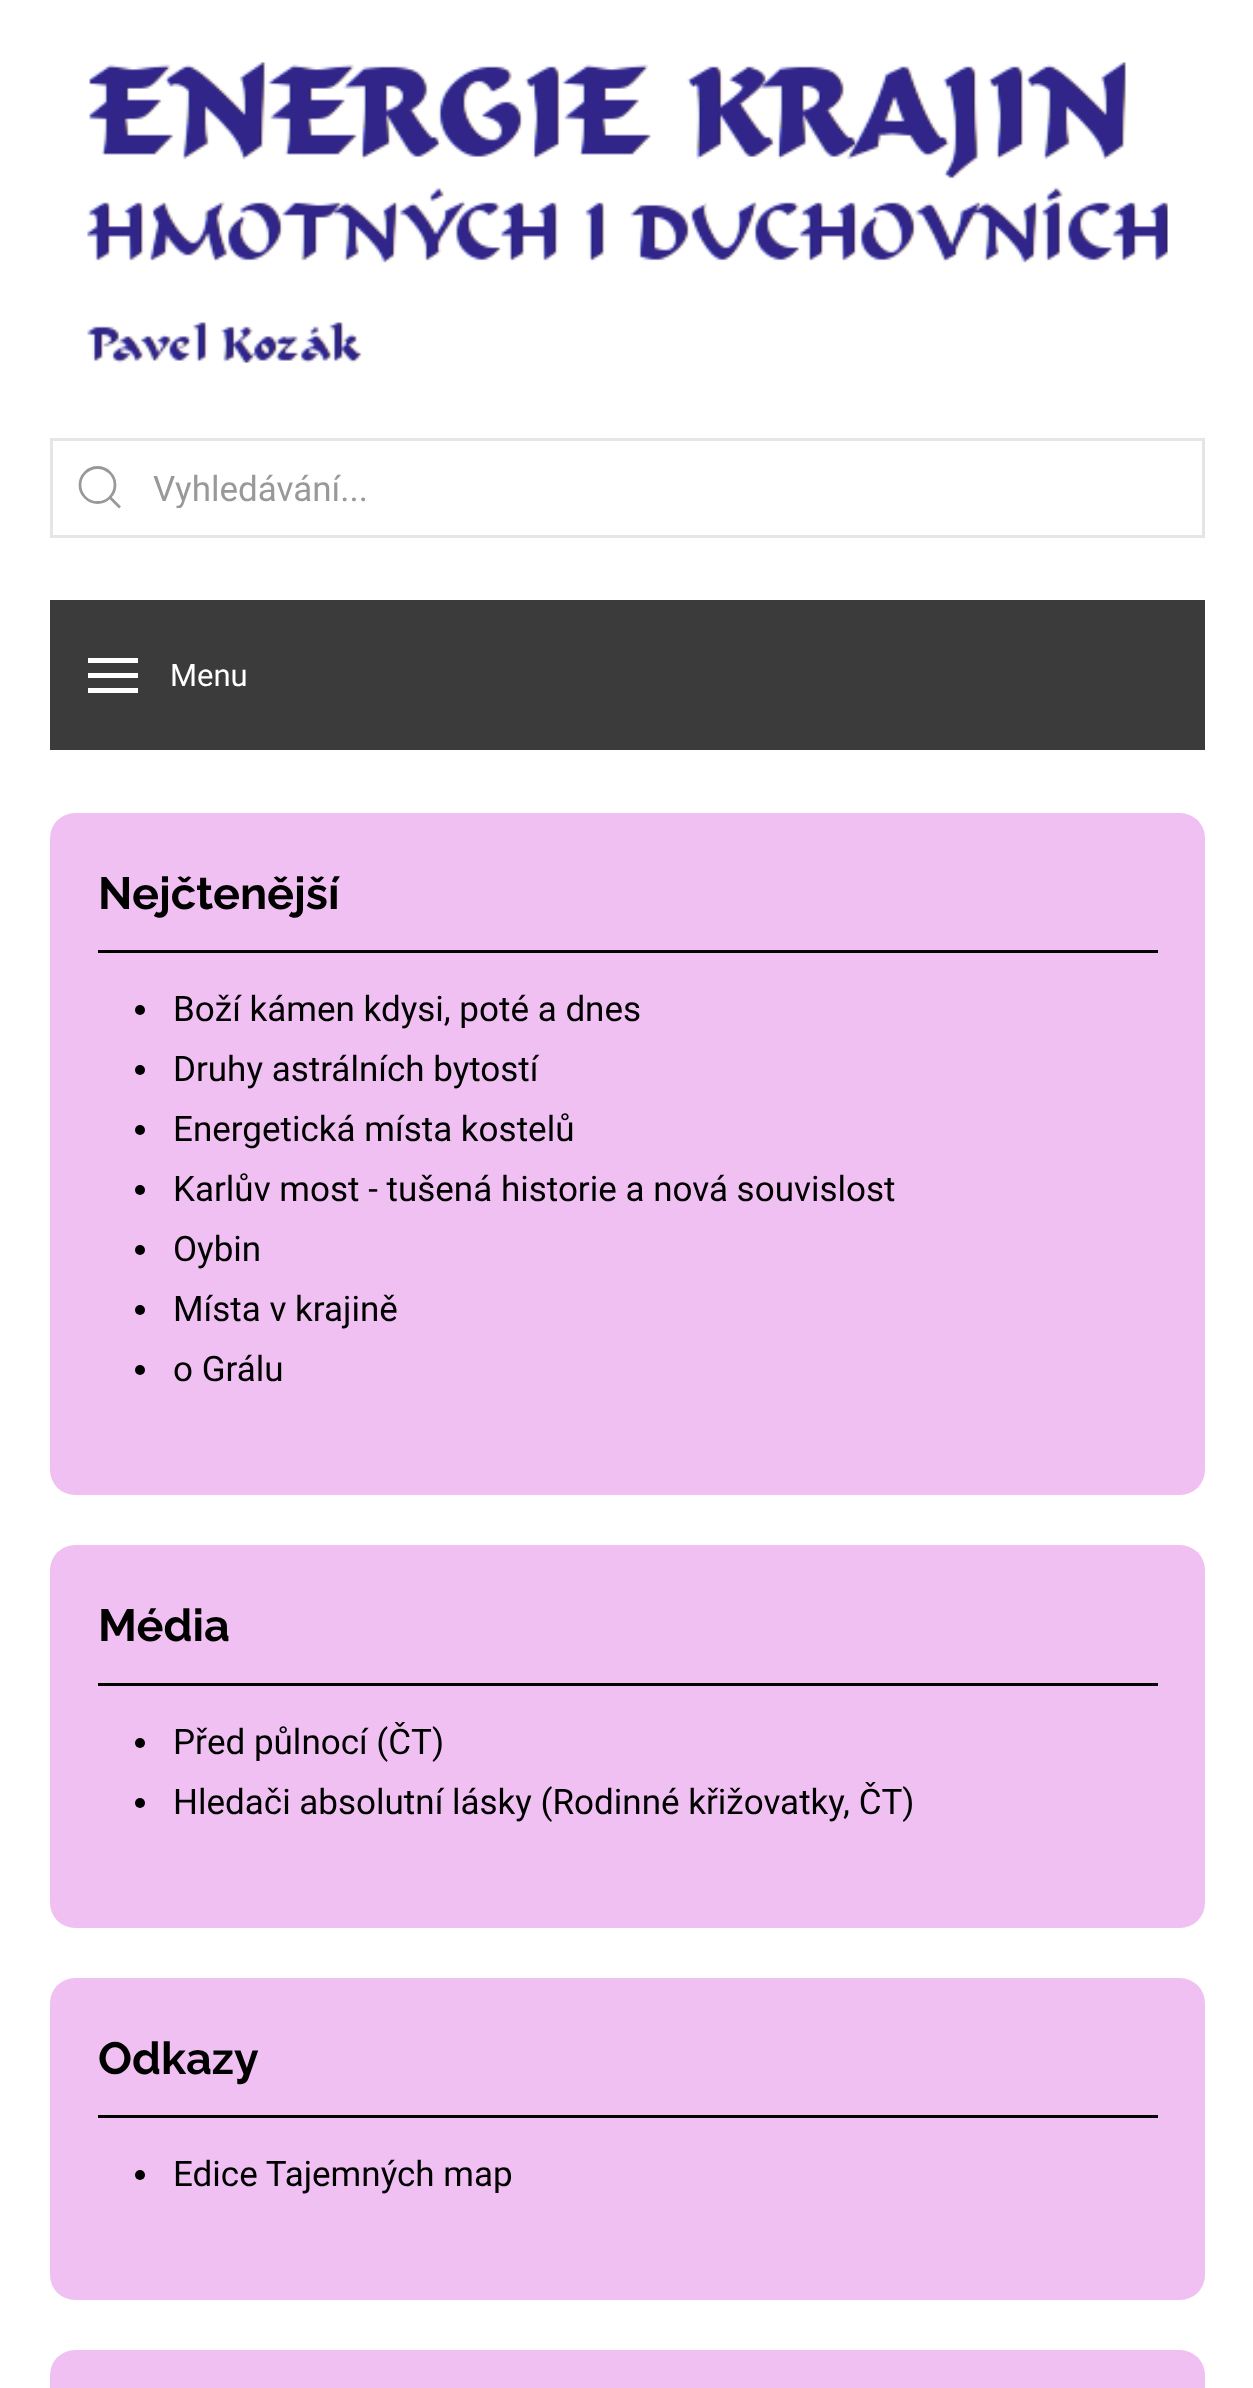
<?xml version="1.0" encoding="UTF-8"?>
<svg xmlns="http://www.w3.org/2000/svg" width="1253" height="2388">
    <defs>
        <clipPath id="clip1"><rect x="153" y="468" width="1015" height="40"/></clipPath>
    </defs>
    <rect width="100%" height="100%" fill="#FFFFFF"/>
    <image x="87" y="62" width="1081" height="301" href="img_01.png"/>
    <rect x="51.5" y="439.5" width="1152" height="97" fill="none" stroke="#E5E5E5" stroke-width="3"/>
    <circle cx="97.5" cy="485" r="17.5" fill="none" stroke="#999999" stroke-width="2.8"/>
    <path d="M 110 497.5 L 120 507.5 Z" fill="none" stroke="#999999" stroke-width="2.8"/>
    <g clip-path="url(#clip1)">
        <text x="153" y="501" font-family="Roboto" font-size="35" fill="#999999">Vyhledávání...</text>
    </g>
    <rect x="50" y="600" width="1155" height="150" fill="#3B3B3B"/>
    <rect x="88" y="658" width="50" height="5" fill="#FFFFFF"/>
    <rect x="88" y="673" width="50" height="5" fill="#FFFFFF"/>
    <rect x="88" y="688" width="50" height="5" fill="#FFFFFF"/>
    <text x="170" y="686" font-family="Roboto" font-size="31" fill="#FFFFFF">Menu</text>
    <rect x="50" y="813" width="1155" height="682" rx="25" fill="#F0C0F3"/>
    <rect x="98" y="950" width="1060" height="3" fill="#000000"/>
    <text x="98" y="909" font-family="Raleway" font-size="45" font-weight="700" fill="#000000">Nejčtenější</text>
    <circle cx="140" cy="1010" r="5" fill="#000000"/>
    <text x="173" y="1021" font-family="Roboto" font-size="35" fill="#000000">Boží kámen kdysi, poté a dnes</text>
    <circle cx="140" cy="1070" r="5" fill="#000000"/>
    <text x="173" y="1081" font-family="Roboto" font-size="35" fill="#000000">Druhy astrálních bytostí</text>
    <circle cx="140" cy="1130" r="5" fill="#000000"/>
    <text x="173" y="1141" font-family="Roboto" font-size="35" fill="#000000">Energetická místa kostelů</text>
    <circle cx="140" cy="1190" r="5" fill="#000000"/>
    <text x="173" y="1201" font-family="Roboto" font-size="35" fill="#000000">Karlův most - tušená historie a nová souvislost</text>
    <circle cx="140" cy="1250" r="5" fill="#000000"/>
    <text x="173" y="1261" font-family="Roboto" font-size="35" fill="#000000">Oybin</text>
    <circle cx="140" cy="1310" r="5" fill="#000000"/>
    <text x="173" y="1321" font-family="Roboto" font-size="35" fill="#000000">Místa v krajině</text>
    <circle cx="140" cy="1370" r="5" fill="#000000"/>
    <text x="173" y="1381" font-family="Roboto" font-size="35" fill="#000000">o Grálu</text>
    <rect x="50" y="1545" width="1155" height="383" rx="25" fill="#F0C0F3"/>
    <rect x="98" y="1683" width="1060" height="3" fill="#000000"/>
    <text x="98" y="1641" font-family="Raleway" font-size="45" font-weight="700" fill="#000000">Média</text>
    <circle cx="140" cy="1743" r="5" fill="#000000"/>
    <text x="173" y="1754" font-family="Roboto" font-size="35" fill="#000000">Před půlnocí (ČT)</text>
    <circle cx="140" cy="1803" r="5" fill="#000000"/>
    <text x="173" y="1814" font-family="Roboto" font-size="35" fill="#000000">Hledači absolutní lásky (Rodinné křižovatky, ČT)</text>
    <rect x="50" y="1978" width="1155" height="322" rx="25" fill="#F0C0F3"/>
    <rect x="98" y="2115" width="1060" height="3" fill="#000000"/>
    <text x="98" y="2074" font-family="Raleway" font-size="45" font-weight="700" fill="#000000">Odkazy</text>
    <circle cx="140" cy="2175" r="5" fill="#000000"/>
    <text x="173" y="2186" font-family="Roboto" font-size="35" fill="#000000">Edice Tajemných map</text>
    <rect x="50" y="2350" width="1155" height="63" rx="25" fill="#F0C0F3"/>
</svg>
